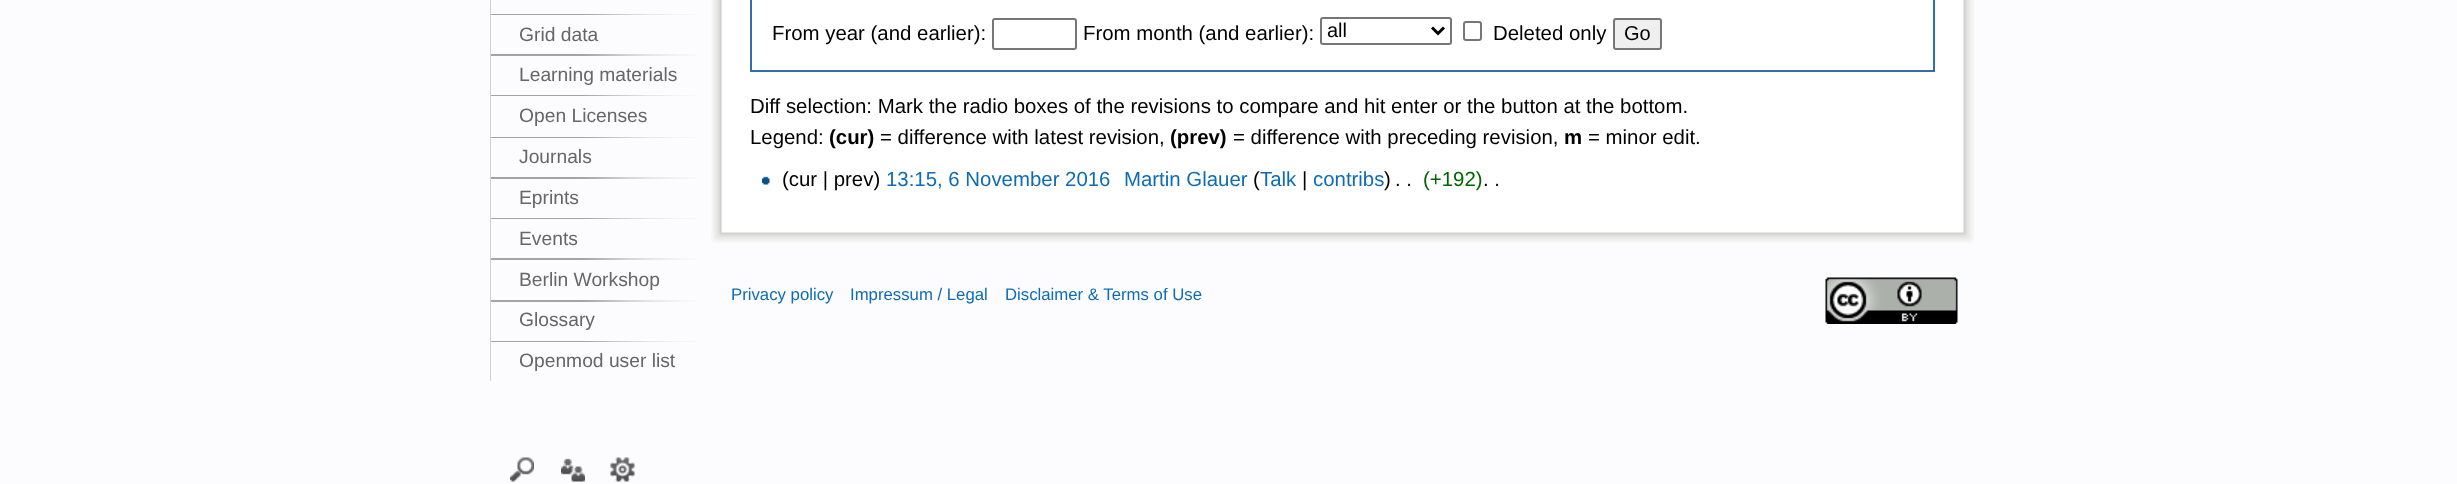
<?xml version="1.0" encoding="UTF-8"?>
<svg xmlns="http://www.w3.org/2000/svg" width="2457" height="484">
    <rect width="100%" height="100%" fill="#FCFCFE"/>
    <image x="490" y="0" width="207" height="381" href="img_01.png"/>
    <rect x="491" y="0" width="206" height="14" fill="#FCFCFE"/>
    <rect x="491" y="15" width="206" height="39" fill="#FCFCFE"/>
    <text x="519" y="41" font-family="Liberation Sans" font-size="19.25" fill="#666666">Grid data</text>
    <rect x="491" y="56" width="206" height="39" fill="#FCFCFE"/>
    <text x="519" y="81" font-family="Liberation Sans" font-size="19.25" fill="#666666">Learning materials</text>
    <rect x="491" y="96" width="206" height="41" fill="#FCFCFE"/>
    <text x="519" y="122" font-family="Liberation Sans" font-size="19.25" fill="#666666">Open Licenses</text>
    <rect x="491" y="138" width="206" height="39" fill="#FCFCFE"/>
    <text x="519" y="163" font-family="Liberation Sans" font-size="19.25" fill="#666666">Journals</text>
    <rect x="491" y="179" width="206" height="39" fill="#FCFCFE"/>
    <text x="519" y="204" font-family="Liberation Sans" font-size="19.25" fill="#666666">Eprints</text>
    <rect x="491" y="219" width="206" height="39" fill="#FCFCFE"/>
    <text x="519" y="245" font-family="Liberation Sans" font-size="19.25" fill="#666666">Events</text>
    <rect x="491" y="260" width="206" height="40" fill="#FCFCFE"/>
    <text x="519" y="286" font-family="Liberation Sans" font-size="19.25" fill="#666666">Berlin Workshop</text>
    <rect x="491" y="302" width="206" height="39" fill="#FCFCFE"/>
    <text x="519" y="326" font-family="Liberation Sans" font-size="19.25" fill="#666666">Glossary</text>
    <rect x="491" y="342" width="206" height="39" fill="#FCFCFE"/>
    <text x="519" y="367" font-family="Liberation Sans" font-size="19.25" fill="#666666">Openmod user list</text>
    <image x="510" y="457" width="24" height="25" href="img_02.png"/>
    <image x="561" y="458" width="24" height="24" href="img_03.png"/>
    <image x="610" y="457" width="25" height="25" href="img_04.png"/>
    <rect x="722" y="0" width="1242" height="233" fill="#FFFFFF"/>
    <image x="721" y="232" width="1243" height="11" href="img_08.png"/>
    <image x="711" y="232" width="11" height="11" href="img_09.png"/>
    <image x="711" y="0" width="11" height="233" href="img_05.png"/>
    <rect x="751" y="-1" width="1183" height="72" fill="none" stroke="#2F6FAB" stroke-width="2"/>
    <text x="772" y="40" font-family="Liberation Sans" font-size="20.4" fill="#000000">From year (and earlier):</text>
    <rect x="993" y="19" width="83" height="30" rx="2" fill="none" stroke="#767676" stroke-width="2"/>
    <text x="1083" y="40" font-family="Liberation Sans" font-size="20.4" fill="#000000">From month (and earlier):</text>
    <rect x="1321" y="18" width="130" height="26" rx="2" fill="none" stroke="#767676" stroke-width="2"/>
    <path d="M 1432 27.5 L 1438 33.5 L 1444 27.5" fill="none" stroke="#000000" stroke-width="3"/>
    <text x="1327" y="37" font-family="Liberation Sans" font-size="20" fill="#000000">all</text>
    <rect x="1464" y="22" width="17" height="18" rx="2" fill="none" stroke="#767676" stroke-width="2"/>
    <text x="1493" y="40" font-family="Liberation Sans" font-size="20.4" fill="#000000">Deleted only</text>
    <rect x="1614" y="19" width="47" height="30" rx="2" fill="#EFEFEF" stroke="#767676" stroke-width="2"/>
    <text x="1624" y="40" font-family="Liberation Sans" font-size="20" fill="#000000">Go</text>
    <text font-family="Liberation Sans" font-size="20.4" fill="#000000">
        <tspan x="750" y="113">Diff selection: Mark the radio boxes of the revisions to compare and hit enter or the button at the bottom.</tspan>
        <tspan x="750" y="144">Legend:</tspan>
    </text>
    <text x="829" y="144" font-family="Liberation Sans" font-size="20.4" font-weight="700" fill="#000000">(cur)</text>
    <text x="880" y="144" font-family="Liberation Sans" font-size="20.4" fill="#000000">= difference with latest revision,</text>
    <text x="1170" y="144" font-family="Liberation Sans" font-size="20.4" font-weight="700" fill="#000000">(prev)</text>
    <text x="1233" y="144" font-family="Liberation Sans" font-size="20.4" fill="#000000">= difference with preceding revision,</text>
    <text x="1564" y="144" font-family="Liberation Sans" font-size="20.4" font-weight="700" fill="#000000">m</text>
    <text x="1588" y="144" font-family="Liberation Sans" font-size="20.4" fill="#000000">= minor edit.</text>
    <image x="762" y="176" width="8" height="9" href="img_06.png"/>
    <text x="782" y="186" font-family="Liberation Sans" font-size="20.4" fill="#000000">(cur | prev)</text>
    <text x="886" y="186" font-family="Liberation Sans" font-size="20.4" fill="#0D6CB5">13:15, 6 November 2016</text>
    <text x="1124" y="186" font-family="Liberation Sans" font-size="20.4" fill="#0D6CB5">Martin Glauer</text>
    <text x="1253" y="186" font-family="Liberation Sans" font-size="20.4" fill="#000000">(</text>
    <text x="1260" y="186" font-family="Liberation Sans" font-size="20.4" fill="#0D6CB5">Talk</text>
    <text x="1302" y="186" font-family="Liberation Sans" font-size="20.4" fill="#000000">|</text>
    <text x="1313" y="186" font-family="Liberation Sans" font-size="20.4" fill="#0D6CB5">contribs</text>
    <text x="1384" y="186" font-family="Liberation Sans" font-size="20.4" fill="#000000">)</text>
    <text x="1395" y="186" font-family="Liberation Sans" font-size="20.4" fill="#000000"> . .</text>
    <text x="1423" y="186" font-family="Liberation Sans" font-size="20.4" fill="#006400">(+192)</text>
    <text x="1483" y="186" font-family="Liberation Sans" font-size="20.4" fill="#000000"> . .</text>
    <image x="1963" y="232" width="11" height="11" href="img_10.png"/>
    <image x="1963" y="0" width="11" height="233" href="img_07.png"/>
    <text x="731" y="300" font-family="Liberation Sans" font-size="16.75" fill="#0D6CB5">Privacy policy</text>
    <text x="850" y="300" font-family="Liberation Sans" font-size="16.75" fill="#0D6CB5">Impressum / Legal</text>
    <text x="1005" y="300" font-family="Liberation Sans" font-size="16.75" fill="#0D6CB5">Disclaimer &amp; Terms of Use</text>
    <image x="1825" y="277" width="133" height="47" href="img_11.png"/>
</svg>
